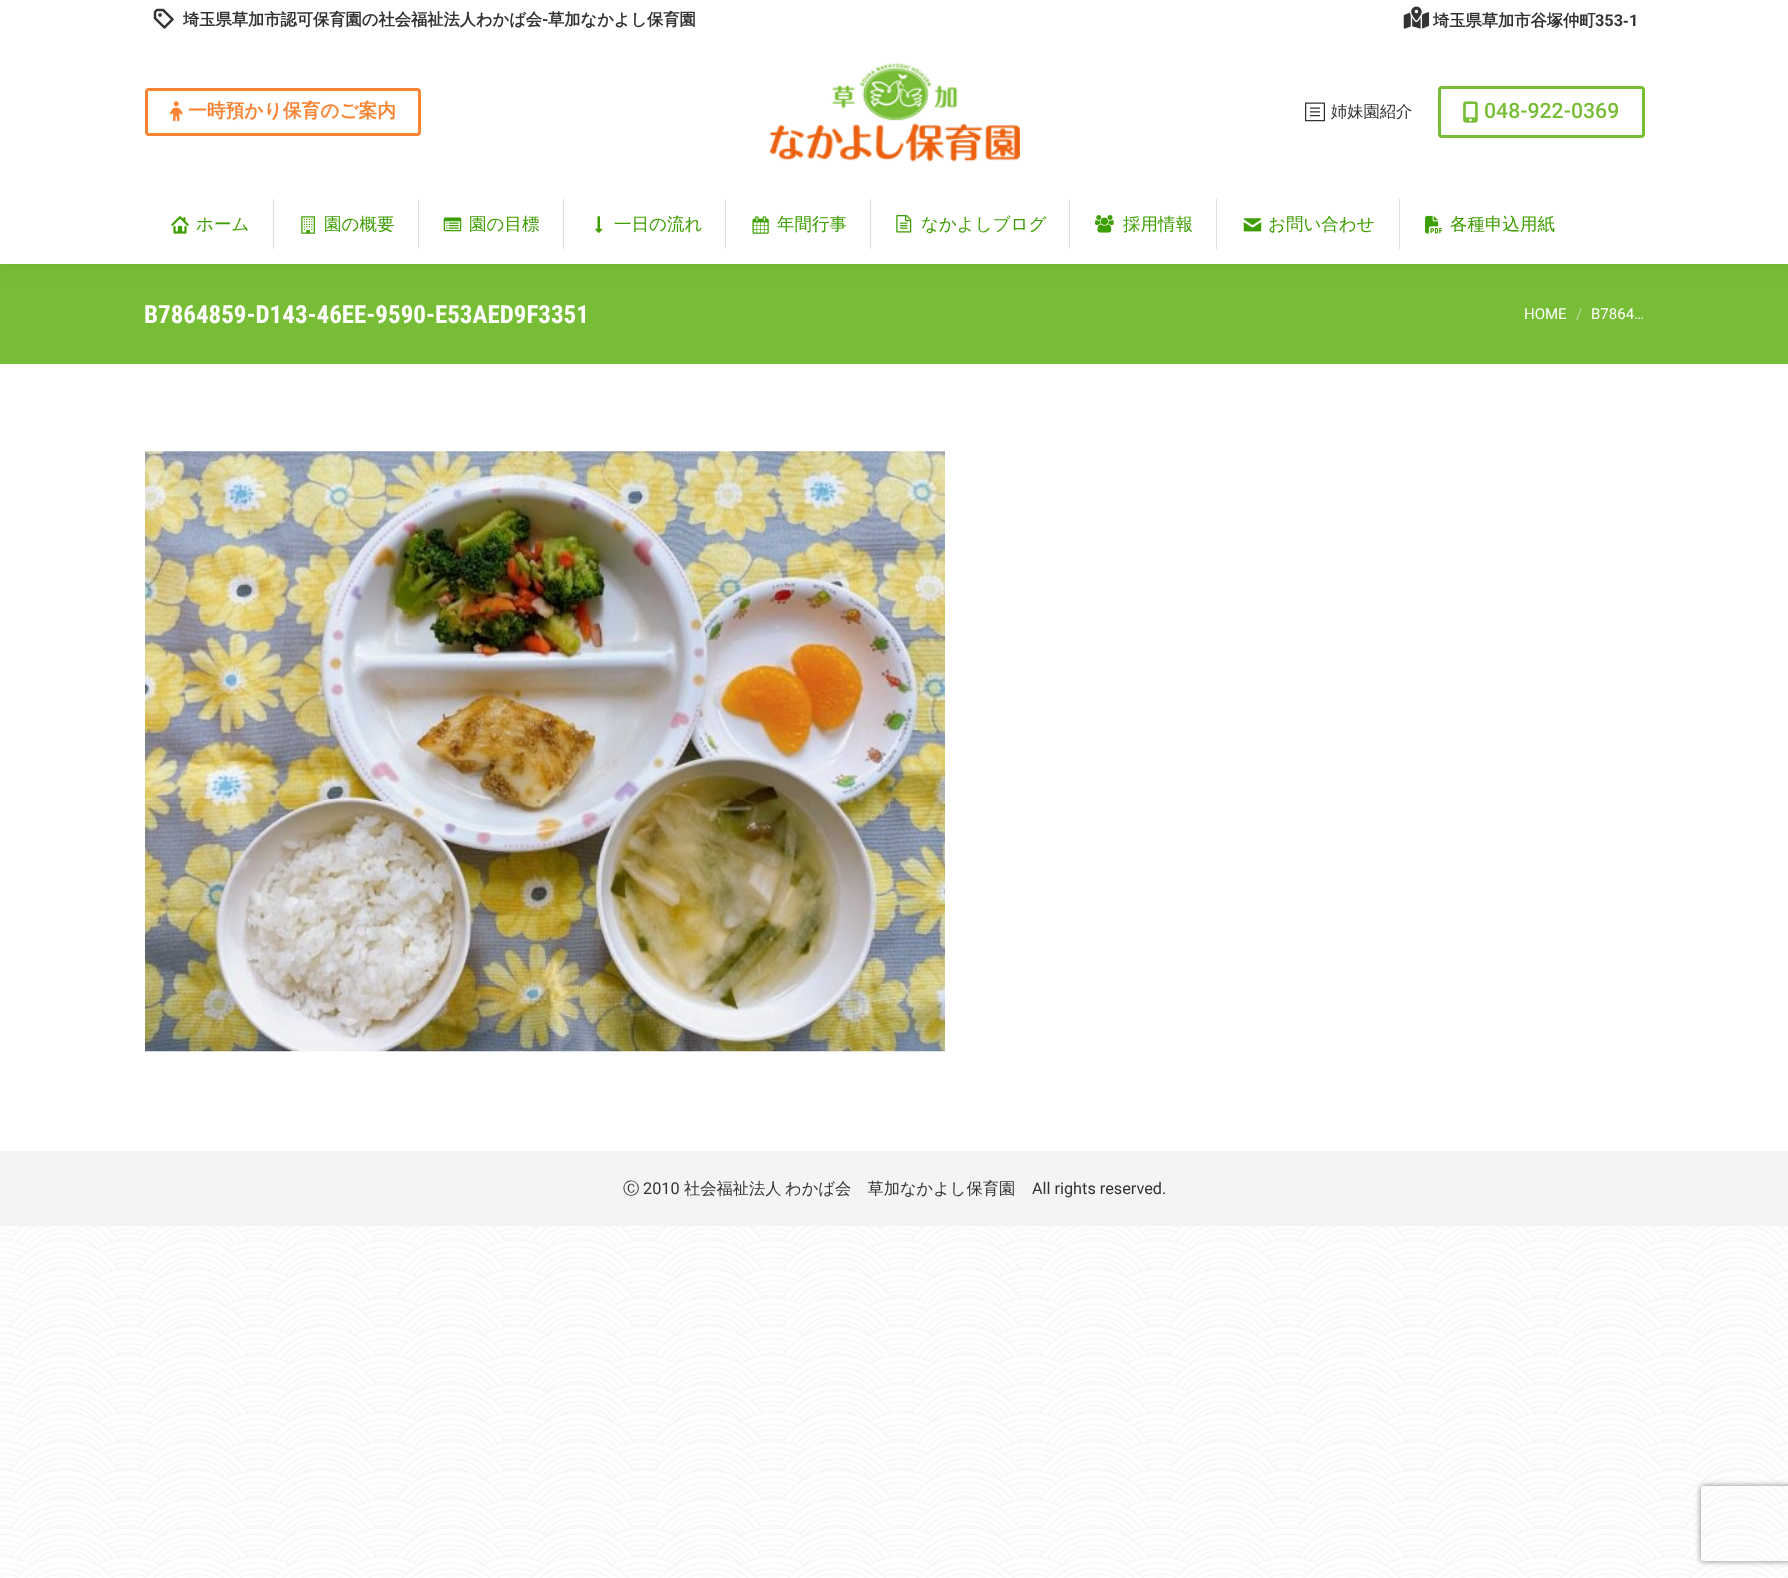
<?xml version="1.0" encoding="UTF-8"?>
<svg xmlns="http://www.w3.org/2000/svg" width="1788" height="1578">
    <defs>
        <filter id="blur1" x="-50%" y="-200%" width="200%" height="500%"><feGaussianBlur stdDeviation="9.5"/></filter>
        <clipPath id="clip1"><path d="M 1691 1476 H 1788 V 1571 H 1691 Z M 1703.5 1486 H 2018.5 C 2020 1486 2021 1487 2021 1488.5 V 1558.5 C 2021 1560 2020 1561 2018.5 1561 H 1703.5 C 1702 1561 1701 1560 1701 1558.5 V 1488.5 C 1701 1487 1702 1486 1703.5 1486 Z" clip-rule="evenodd"/></clipPath>
        <filter id="blur2" x="-50%" y="-200%" width="200%" height="500%"><feGaussianBlur stdDeviation="3"/></filter>
    </defs>
    <rect width="100%" height="100%" fill="#FFFFFF"/>
    <image x="0" y="1226" width="1788" height="352" href="img_01.png"/>
    <rect x="0" y="264" width="1788" height="100" fill="#78BD36"/>
    <rect x="-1" y="-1" width="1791" height="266" fill="#000000" fill-opacity="0.07" filter="url(#blur1)"/>
    <rect x="0" y="0" width="1788" height="264" fill="#FFFFFF"/>
    <image x="153" y="8" width="21" height="21" href="img_02.png"/>
    <text x="183" y="25" font-family="WenQuanYi Zen Hei" font-size="16.25" font-weight="700" fill="#333333">埼玉県草加市認可保育園の社会福祉法人わかば会</text>
    <text x="542" y="25" font-family="Roboto" font-size="16.25" font-weight="700" fill="#333333">-</text>
    <text x="548" y="25" font-family="WenQuanYi Zen Hei" font-size="16.25" font-weight="700" fill="#333333">草加なかよし保育園</text>
    <image x="1403" y="6" width="27" height="23" href="img_03.png"/>
    <text x="1433" y="26" font-family="WenQuanYi Zen Hei" font-size="16.25" font-weight="700" fill="#333333">埼玉県草加市谷塚仲町</text>
    <text x="1595" y="26" font-family="Roboto" font-size="16.25" font-weight="700" fill="#333333">353</text>
    <text x="1623" y="26" font-family="Liberation Sans" font-size="16.25" font-weight="700" fill="#333333">‐</text>
    <text x="1629" y="26" font-family="Roboto" font-size="16.25" font-weight="700" fill="#333333">1</text>
    <rect x="146.5" y="89.5" width="273" height="45" rx="2.5" fill="none" stroke="#FA8334" stroke-width="3"/>
    <image x="170" y="101" width="13" height="21" href="img_04.png"/>
    <text x="188" y="117" font-family="WenQuanYi Zen Hei" font-size="18.75" font-weight="700" fill="#FA8334">一時預かり保育のご案内</text>
    <image x="770" y="62" width="250" height="100" href="img_05.png"/>
    <image x="1305" y="102" width="20" height="20" href="img_06.png"/>
    <text x="1331" y="117" font-family="WenQuanYi Zen Hei" font-size="16.25" font-weight="500" fill="#333333">姉妹園紹介</text>
    <rect x="1439.5" y="87.5" width="204" height="49" rx="2.5" fill="none" stroke="#78BD36" stroke-width="3"/>
    <image x="1463" y="101" width="15" height="22" href="img_07.png"/>
    <text x="1484" y="118" font-family="Roboto" font-size="21.25" font-weight="500" fill="#78BD36">048-922-0369</text>
    <image x="171" y="216" width="18" height="18" href="img_08.png"/>
    <text x="196" y="230" font-family="WenQuanYi Zen Hei" font-size="17.5" font-weight="500" fill="#3C9E00">ホーム</text>
    <rect x="273" y="199" width="1" height="50" fill="#DEDEDE"/>
    <image x="301" y="216" width="14" height="18" href="img_09.png"/>
    <text x="324" y="230" font-family="WenQuanYi Zen Hei" font-size="17.5" font-weight="500" fill="#3C9E00">園の概要</text>
    <rect x="418" y="199" width="1" height="50" fill="#DEDEDE"/>
    <image x="443" y="217" width="19" height="15" href="img_10.png"/>
    <text x="469" y="230" font-family="WenQuanYi Zen Hei" font-size="17.5" font-weight="500" fill="#3C9E00">園の目標</text>
    <rect x="563" y="199" width="1" height="50" fill="#DEDEDE"/>
    <image x="595" y="216" width="8" height="18" href="img_11.png"/>
    <text x="614" y="230" font-family="WenQuanYi Zen Hei" font-size="17.5" font-weight="500" fill="#3C9E00">一日の流れ</text>
    <rect x="725" y="199" width="1" height="50" fill="#DEDEDE"/>
    <image x="752" y="216" width="17" height="18" href="img_12.png"/>
    <text x="777" y="230" font-family="WenQuanYi Zen Hei" font-size="17.5" font-weight="500" fill="#3C9E00">年間行事</text>
    <rect x="870" y="199" width="1" height="50" fill="#DEDEDE"/>
    <image x="896" y="215" width="16" height="18" href="img_13.png"/>
    <text x="921" y="230" font-family="WenQuanYi Zen Hei" font-size="17.5" font-weight="500" fill="#3C9E00">なかよしブログ</text>
    <rect x="1069" y="199" width="1" height="50" fill="#DEDEDE"/>
    <image x="1095" y="215" width="19" height="18" href="img_14.png"/>
    <text x="1123" y="230" font-family="WenQuanYi Zen Hei" font-size="17.5" font-weight="500" fill="#3C9E00">採用情報</text>
    <rect x="1216" y="199" width="1" height="50" fill="#DEDEDE"/>
    <image x="1243" y="218" width="19" height="14" href="img_15.png"/>
    <text x="1268" y="230" font-family="WenQuanYi Zen Hei" font-size="17.5" font-weight="500" fill="#3C9E00">お問い合わせ</text>
    <rect x="1399" y="199" width="1" height="50" fill="#DEDEDE"/>
    <image x="1425" y="215" width="17" height="19" href="img_16.png"/>
    <text x="1450" y="230" font-family="WenQuanYi Zen Hei" font-size="17.5" font-weight="500" fill="#3C9E00">各種申込用紙</text>
    <text x="144" y="323" font-family="Roboto Condensed" font-size="25" font-weight="700" fill="#FFFFFF">B7864859-D143-46EE-9590-E53AED9F3351</text>
    <text x="1524" y="319" font-family="Roboto" font-size="15" fill="#FFFFFF">HOME</text>
    <text x="1576" y="319" font-family="Roboto" font-size="15" fill="#BCDE9B">/</text>
    <text x="1591" y="319" font-family="Roboto" font-size="15" fill="#FFFFFF">B7864…</text>
    <image x="145" y="451" width="800" height="601" href="img_17.png"/>
    <rect x="0" y="1151" width="1788" height="75" fill="#F4F4F4"/>
    <text x="623" y="1194" font-family="WenQuanYi Zen Hei" font-size="16.25" font-weight="500" fill="#333333">Ⓒ</text>
    <text x="643" y="1194" font-family="Roboto" font-size="16.25" fill="#333333">2010</text>
    <text x="684" y="1194" font-family="WenQuanYi Zen Hei" font-size="16.25" font-weight="500" fill="#333333">社会福祉法人</text>
    <text x="785" y="1194" font-family="WenQuanYi Zen Hei" font-size="16.25" font-weight="500" fill="#333333">わかば会　草加なかよし保育園</text>
    <text x="1032" y="1194" font-family="Roboto" font-size="16.25" fill="#333333">All rights reserved.</text>
    <g clip-path="url(#clip1)">
        <rect x="1701" y="1486" width="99" height="75" rx="2.5" fill="#808080" filter="url(#blur2)"/>
    </g>
</svg>
